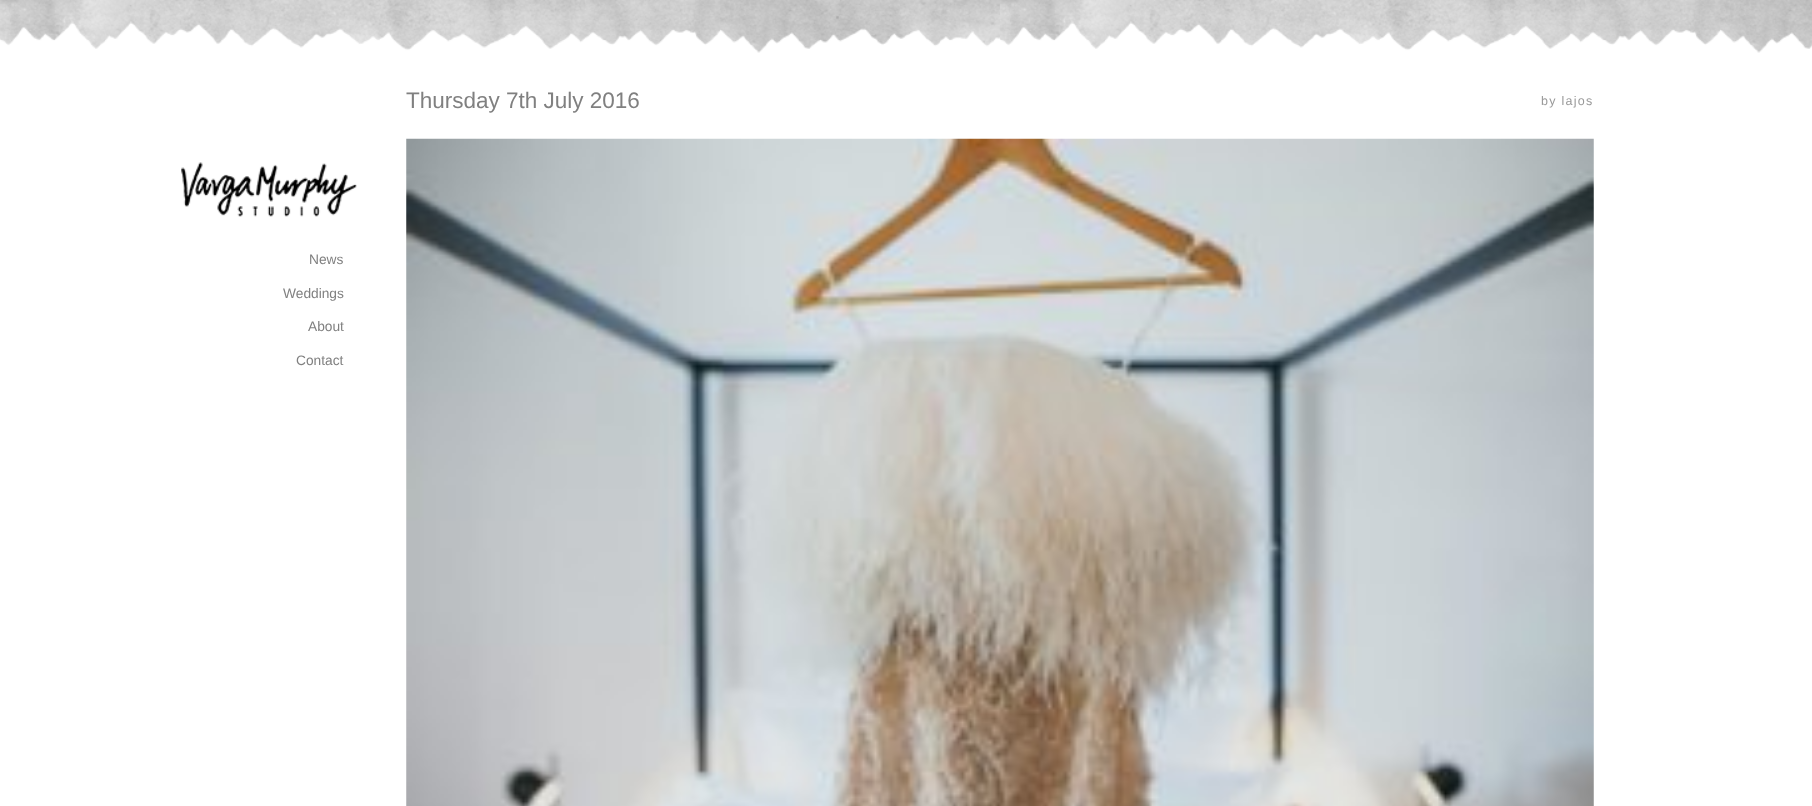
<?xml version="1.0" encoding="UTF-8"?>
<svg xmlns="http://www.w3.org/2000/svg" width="1812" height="806">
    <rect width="100%" height="100%" fill="#FFFFFF"/>
    <image x="0" y="0" width="1812" height="53" href="img_01.png"/>
    <text x="406" y="108" font-family="Liberation Sans" font-size="22.5" fill="#808080">Thursday 7th July 2016</text>
    <text x="1541" y="105" font-family="Liberation Sans" font-size="12.5" letter-spacing="1.25" fill="#999999">by lajos</text>
    <image x="406" y="138" width="1188" height="668" href="img_02.png"/>
    <image x="181" y="162" width="176" height="55" href="img_03.png"/>
    <text x="309" y="264" font-family="Liberation Sans" font-size="13.75" fill="#808080">News</text>
    <text x="283" y="298" font-family="Liberation Sans" font-size="13.75" fill="#808080">Weddings</text>
    <text x="308" y="331" font-family="Liberation Sans" font-size="13.75" fill="#808080">About</text>
    <text x="296" y="365" font-family="Liberation Sans" font-size="13.75" fill="#808080">Contact</text>
</svg>
